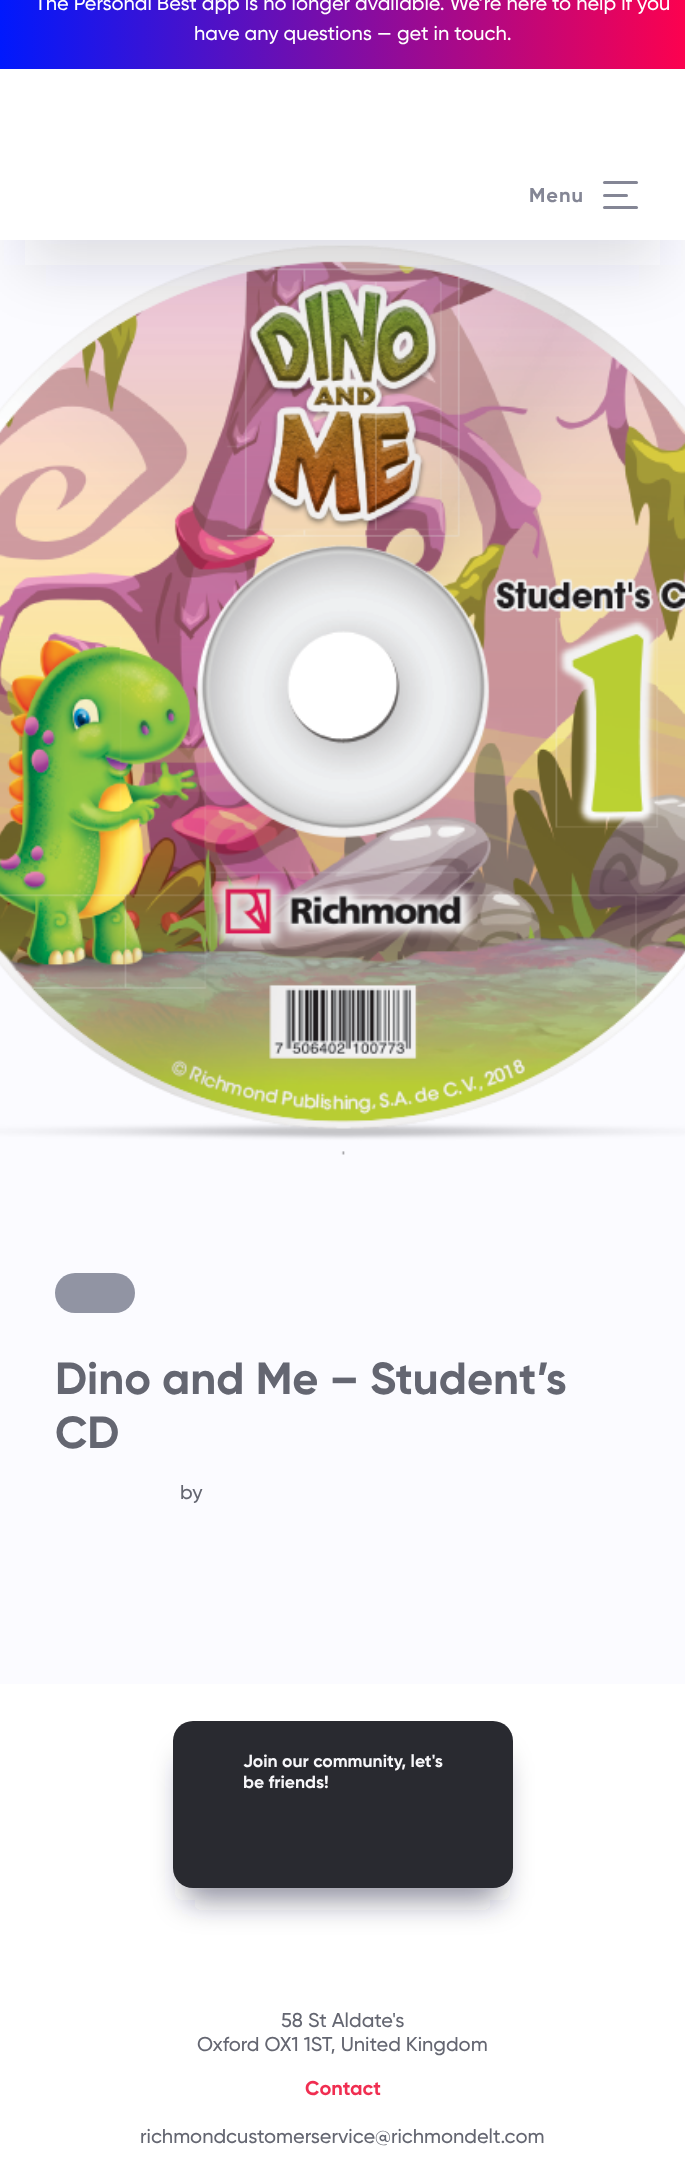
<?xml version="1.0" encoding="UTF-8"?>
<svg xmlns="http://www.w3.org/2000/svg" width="685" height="2183">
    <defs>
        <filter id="blur1" x="-50%" y="-200%" width="200%" height="500%"><feGaussianBlur stdDeviation="31"/></filter>
        <linearGradient id="g1" gradientUnits="userSpaceOnUse" x1="0" y1="10" x2="685" y2="10"><stop offset="0" stop-color="#0019FD"/><stop offset="1" stop-color="#FC014F"/></linearGradient>
        <filter id="blur2" x="-50%" y="-200%" width="200%" height="500%"><feGaussianBlur stdDeviation="15.5"/></filter>
    </defs>
    <rect width="100%" height="100%" fill="#FFFFFF"/>
    <rect x="0" y="240" width="685" height="1444" fill="#FBFBFF"/>
    <image x="0" y="245" width="685" height="910" href="img_01.png"/>
    <rect x="25" y="75" width="635" height="190" fill="#22253B" fill-opacity="0.15" filter="url(#blur1)"/>
    <rect x="0" y="69" width="685" height="171" fill="#FFFFFF"/>
    <rect x="0" y="0" width="685" height="69" fill="url(#g1)"/>
    <text x="35" y="10" font-family="Gilroy" font-size="20" font-weight="500" fill="#FFFFFF">The Personal Best app is no longer available. We’re here to help if you</text>
    <text x="194" y="40" font-family="Gilroy" font-size="20" font-weight="500" fill="#FFFFFF">have any questions — get in touch.</text>
    <text x="529" y="202" font-family="Gilroy" font-size="20" font-weight="700" letter-spacing="1" fill="#848695">Menu</text>
    <rect x="603" y="181" width="35" height="3" rx="1.5" fill="#848695"/>
    <rect x="603" y="194" width="25" height="3" rx="1.5" fill="#848695"/>
    <rect x="603" y="206" width="35" height="3" rx="1.5" fill="#848695"/>
    <rect x="55" y="1273" width="80" height="40" rx="20" fill="#9194A3"/>
    <text font-family="Gilroy" font-size="45" font-weight="700" fill="#646671">
        <tspan x="55" y="1394">Dino and Me – Student’s</tspan>
        <tspan x="55" y="1448">CD</tspan>
    </text>
    <text x="180" y="1499" font-family="Gilroy" font-size="20" font-weight="500" fill="#646671">by</text>
    <rect x="185" y="1759" width="315" height="141" rx="8" fill="#22253B" fill-opacity="0.5" filter="url(#blur2)"/>
    <rect x="173" y="1721" width="340" height="167" rx="20" fill="#292A30"/>
    <text font-family="Gilroy" font-size="17.5" font-weight="700" fill="#F7F7FA">
        <tspan x="243" y="1767">Join our community, let's</tspan>
        <tspan x="243" y="1788">be friends!</tspan>
    </text>
    <text x="281" y="2027" font-family="Gilroy" font-size="20" font-weight="500" fill="#646671">58 St Aldate's</text>
    <text x="197" y="2051" font-family="Gilroy" font-size="20" font-weight="500" fill="#646671">Oxford OX1 1ST, United Kingdom</text>
    <text x="305" y="2095" font-family="Gilroy" font-size="20" font-weight="700" fill="#F02E51">Contact</text>
    <text x="140" y="2143" font-family="Gilroy" font-size="20" font-weight="500" fill="#646671">richmondcustomerservice@richmondelt.com</text>
</svg>
